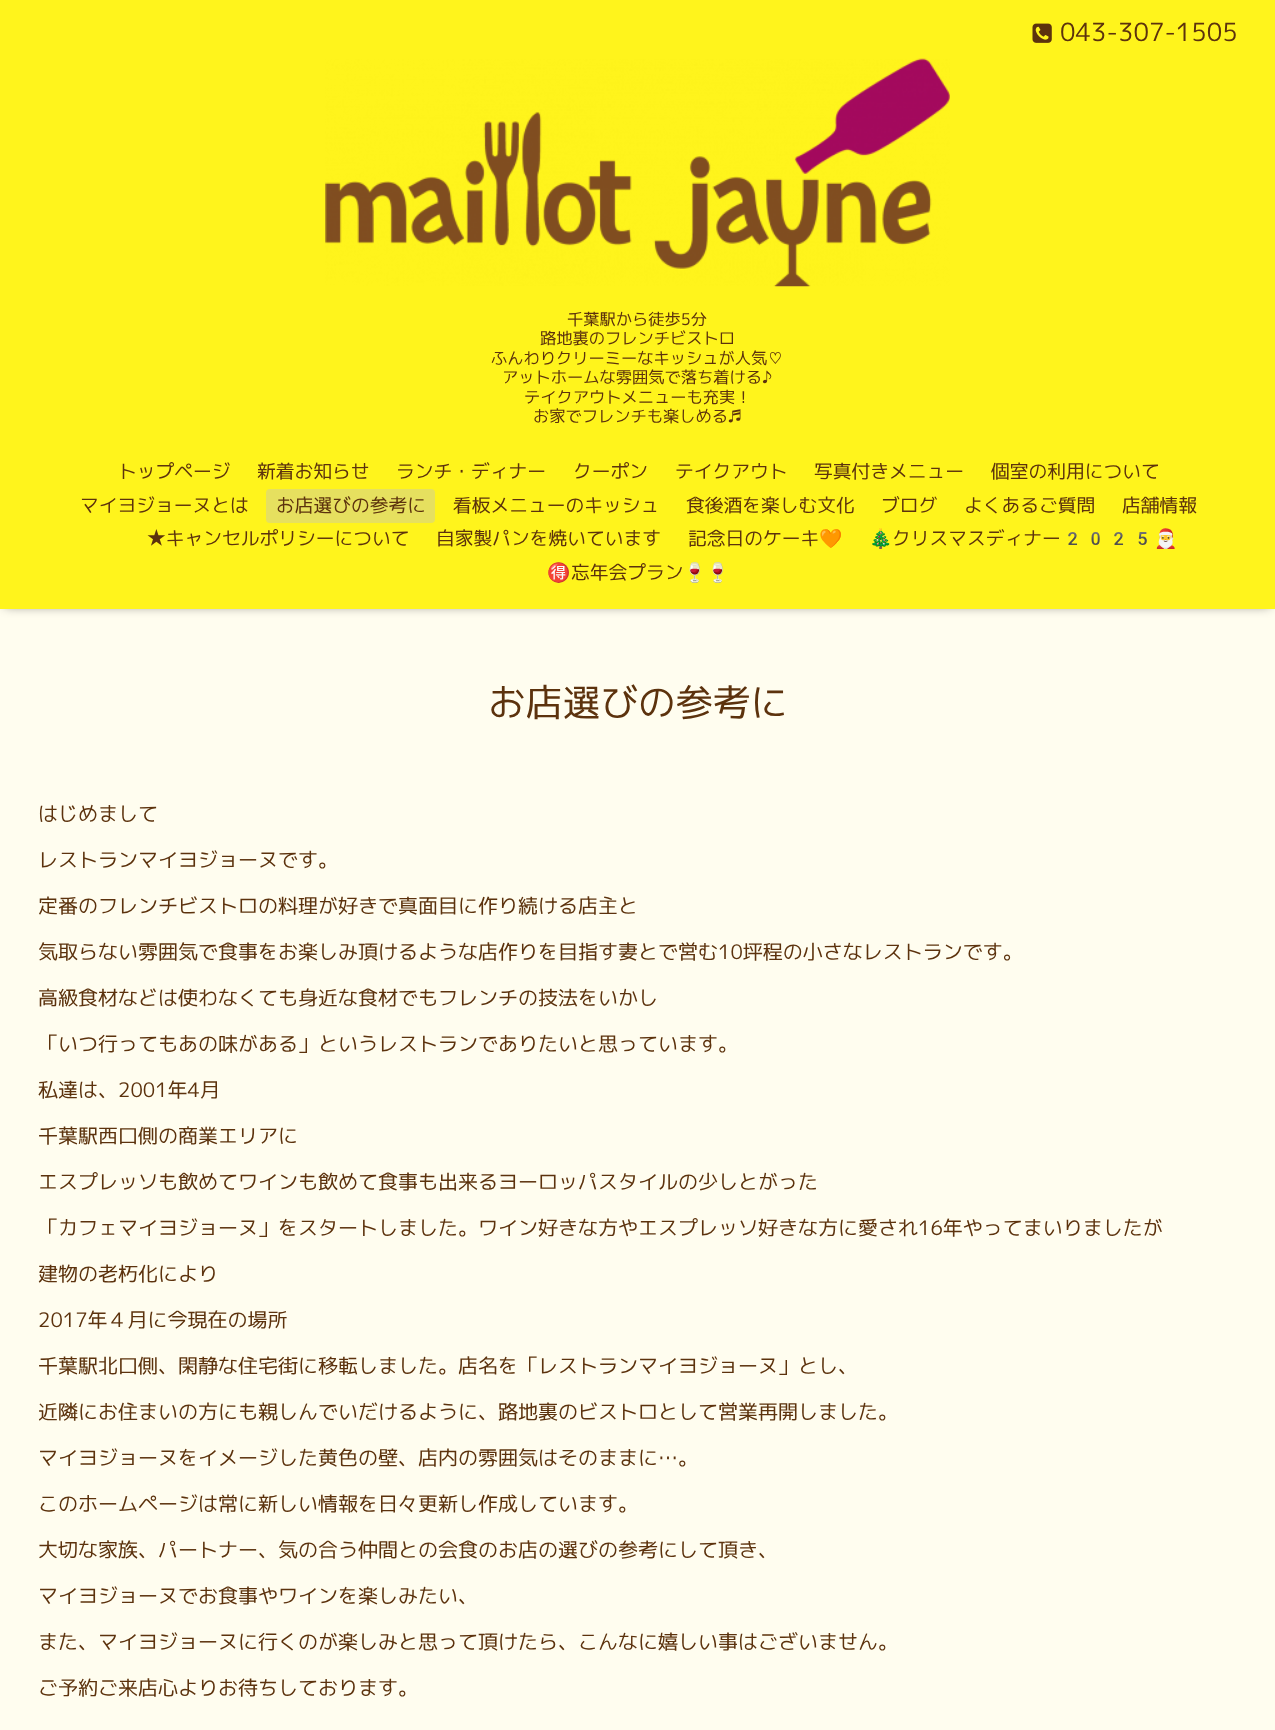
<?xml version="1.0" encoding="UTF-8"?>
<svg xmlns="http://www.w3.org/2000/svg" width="1275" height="1730">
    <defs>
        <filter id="blur1" x="-50%" y="-200%" width="200%" height="500%"><feGaussianBlur stdDeviation="6"/></filter>
    </defs>
    <rect width="100%" height="100%" fill="#FFFDEF"/>
    <rect x="5" y="6" width="1265" height="599" fill="#000000" fill-opacity="0.6" filter="url(#blur1)"/>
    <rect x="0" y="0" width="1275" height="609" fill="#FFF41C"/>
    <image x="1032" y="23" width="20" height="20" href="img_01.png"/>
    <text x="1060" y="41" font-family="'M PLUS 1p'" font-size="25" fill="#5C320D">043-307-1505</text>
    <image x="325" y="58" width="625" height="229" href="img_02.png"/>
    <text x="567" y="325" font-family="'M PLUS 1p'" font-size="16.25" fill="#5C320D">千葉駅から徒歩5分</text>
    <text x="540" y="344" font-family="'M PLUS 1p'" font-size="16.25" fill="#5C320D">路地裏のフレンチビストロ</text>
    <text x="491" y="364" font-family="'M PLUS 1p'" font-size="16.25" fill="#5C320D">ふんわりクリーミーなキッシュが人気♡</text>
    <text x="502" y="383" font-family="'M PLUS 1p'" font-size="16.25" fill="#5C320D">アットホームな雰囲気で落ち着ける♪</text>
    <text x="524" y="403" font-family="'M PLUS 1p'" font-size="16.25" fill="#5C320D">テイクアウトメニューも充実！</text>
    <text x="533" y="422" font-family="'M PLUS 1p'" font-size="16.25" fill="#5C320D">お家でフレンチも楽しめる♬</text>
    <text x="118" y="478" font-family="'M PLUS 1p'" font-size="18.75" fill="#5C320D">トップページ</text>
    <text x="257" y="478" font-family="'M PLUS 1p'" font-size="18.75" fill="#5C320D">新着お知らせ</text>
    <text x="396" y="478" font-family="'M PLUS 1p'" font-size="18.75" fill="#5C320D">ランチ・ディナー</text>
    <text x="573" y="478" font-family="'M PLUS 1p'" font-size="18.75" fill="#5C320D">クーポン</text>
    <text x="675" y="478" font-family="'M PLUS 1p'" font-size="18.75" fill="#5C320D">テイクアウト</text>
    <text x="814" y="478" font-family="'M PLUS 1p'" font-size="18.75" fill="#5C320D">写真付きメニュー</text>
    <text x="991" y="478" font-family="'M PLUS 1p'" font-size="18.75" fill="#5C320D">個室の利用について</text>
    <text x="80" y="512" font-family="'M PLUS 1p'" font-size="18.75" fill="#5C320D">マイヨジョーヌとは</text>
    <rect x="266" y="489" width="169" height="34" rx="4" fill="#E6E05F"/>
    <text x="276" y="512" font-family="'M PLUS 1p'" font-size="18.75" fill="#5C320D">お店選びの参考に</text>
    <text x="453" y="512" font-family="'M PLUS 1p'" font-size="18.75" fill="#5C320D">看板メニューのキッシュ</text>
    <text x="686" y="512" font-family="'M PLUS 1p'" font-size="18.75" fill="#5C320D">食後酒を楽しむ文化</text>
    <text x="881" y="512" font-family="'M PLUS 1p'" font-size="18.75" fill="#5C320D">ブログ</text>
    <text x="964" y="512" font-family="'M PLUS 1p'" font-size="18.75" fill="#5C320D">よくあるご質問</text>
    <text x="1122" y="512" font-family="'M PLUS 1p'" font-size="18.75" fill="#5C320D">店舗情報</text>
    <text x="147" y="545" font-family="'M PLUS 1p'" font-size="18.75" fill="#5C320D">★キャンセルポリシーについて</text>
    <text x="436" y="545" font-family="'M PLUS 1p'" font-size="18.75" fill="#5C320D">自家製パンを焼いています</text>
    <text x="688" y="545" font-family="'M PLUS 1p'" font-size="18.75" fill="#5C320D">記念日のケーキ</text>
    <text x="819" y="545" font-family="Noto Color Emoji" font-size="18.75" fill="#5C320D">🧡</text>
    <text x="869" y="545" font-family="Noto Color Emoji" font-size="18.75" fill="#5C320D">🎄</text>
    <text x="892" y="545" font-family="'M PLUS 1p'" font-size="18.75" fill="#5C320D">クリスマスディナー</text>
    <text x="1061" y="545" font-family="Noto Color Emoji" font-size="18.75" fill="#5C320D">2025🎅</text>
    <text x="547" y="579" font-family="Noto Color Emoji" font-size="18.75" fill="#5C320D">🉐</text>
    <text x="571" y="579" font-family="'M PLUS 1p'" font-size="18.75" fill="#5C320D">忘年会プラン</text>
    <text x="683" y="579" font-family="Noto Color Emoji" font-size="18.75" fill="#5C320D">🍷🍷</text>
    <text x="488" y="716" font-family="'M PLUS 1p'" font-size="37.5" fill="#5C320D">お店選びの参考に</text>
    <text x="38" y="821" font-family="'M PLUS 1p'" font-size="20" fill="#5C320D">はじめまして</text>
    <text x="38" y="867" font-family="'M PLUS 1p'" font-size="20" fill="#5C320D">レストランマイヨジョーヌです。</text>
    <text x="38" y="913" font-family="'M PLUS 1p'" font-size="20" fill="#5C320D">定番のフレンチビストロの料理が好きで真面目に作り続ける店主と</text>
    <text x="38" y="959" font-family="'M PLUS 1p'" font-size="20" fill="#5C320D">気取らない雰囲気で食事をお楽しみ頂けるような店作りを目指す妻とで営む10坪程の小さなレストランです。</text>
    <text x="38" y="1005" font-family="'M PLUS 1p'" font-size="20" fill="#5C320D">高級食材などは使わなくても身近な食材でもフレンチの技法をいかし</text>
    <text x="38" y="1051" font-family="'M PLUS 1p'" font-size="20" fill="#5C320D">「いつ行ってもあの味がある」というレストランでありたいと思っています。</text>
    <text x="38" y="1097" font-family="'M PLUS 1p'" font-size="20" fill="#5C320D">私達は、2001年4月</text>
    <text x="38" y="1143" font-family="'M PLUS 1p'" font-size="20" fill="#5C320D">千葉駅西口側の商業エリアに</text>
    <text x="38" y="1189" font-family="'M PLUS 1p'" font-size="20" fill="#5C320D">エスプレッソも飲めてワインも飲めて食事も出来るヨーロッパスタイルの少しとがった</text>
    <text x="38" y="1235" font-family="'M PLUS 1p'" font-size="20" fill="#5C320D">「カフェマイヨジョーヌ」をスタートしました。ワイン好きな方やエスプレッソ好きな方に愛され16年やってまいりましたが</text>
    <text x="38" y="1281" font-family="'M PLUS 1p'" font-size="20" fill="#5C320D">建物の老朽化により</text>
    <text x="38" y="1327" font-family="'M PLUS 1p'" font-size="20" fill="#5C320D">2017年４月に今現在の場所</text>
    <text x="38" y="1373" font-family="'M PLUS 1p'" font-size="20" fill="#5C320D">千葉駅北口側、閑静な住宅街に移転しました。店名を「レストランマイヨジョーヌ」とし、</text>
    <text x="38" y="1419" font-family="'M PLUS 1p'" font-size="20" fill="#5C320D">近隣にお住まいの方にも親しんでいだけるように、路地裏のビストロとして営業再開しました。</text>
    <text x="38" y="1465" font-family="'M PLUS 1p'" font-size="20" fill="#5C320D">マイヨジョーヌをイメージした黄色の壁、店内の雰囲気はそのままに…。</text>
    <text x="38" y="1511" font-family="'M PLUS 1p'" font-size="20" fill="#5C320D">このホームページは常に新しい情報を日々更新し作成しています。</text>
    <text x="38" y="1557" font-family="'M PLUS 1p'" font-size="20" fill="#5C320D">大切な家族、パートナー、気の合う仲間との会食のお店の選びの参考にして頂き、</text>
    <text x="38" y="1603" font-family="'M PLUS 1p'" font-size="20" fill="#5C320D">マイヨジョーヌでお食事やワインを楽しみたい、</text>
    <text x="38" y="1649" font-family="'M PLUS 1p'" font-size="20" fill="#5C320D">また、マイヨジョーヌに行くのが楽しみと思って頂けたら、こんなに嬉しい事はございません。</text>
    <text x="38" y="1695" font-family="'M PLUS 1p'" font-size="20" fill="#5C320D">ご予約ご来店心よりお待ちしております。</text>
</svg>
